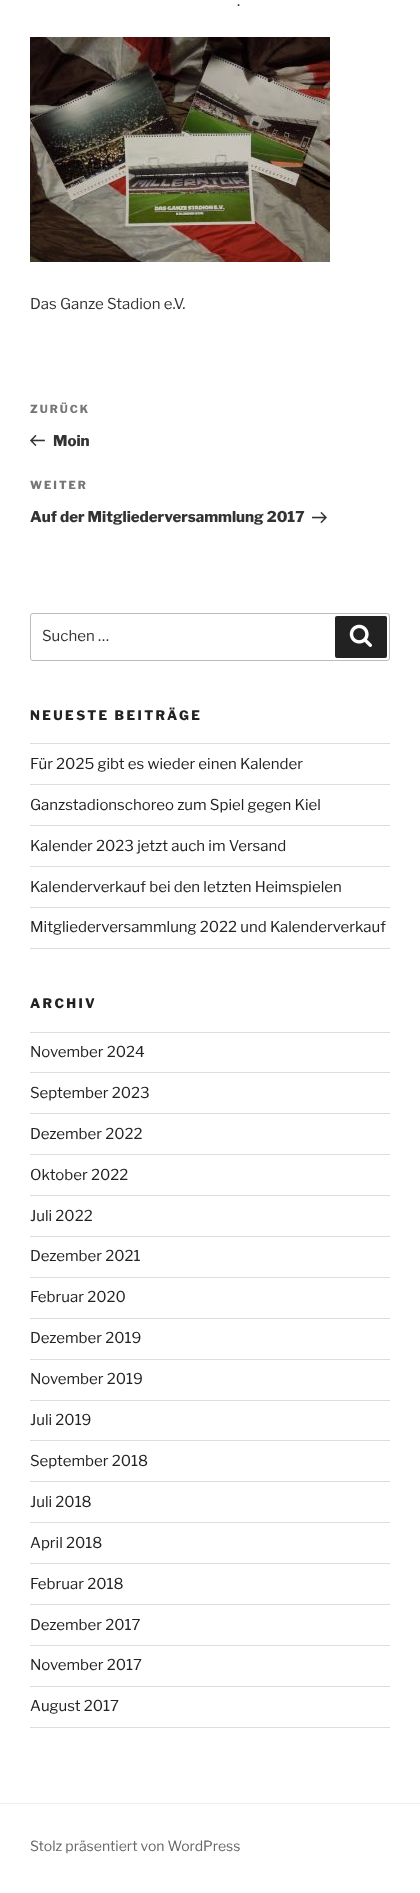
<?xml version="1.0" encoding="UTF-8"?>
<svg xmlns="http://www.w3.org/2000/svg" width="420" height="1893">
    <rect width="100%" height="100%" fill="#FFFFFF"/>
    <text x="237" y="6" font-family="Libre Franklin" font-size="15" font-weight="100" fill="#333333">.</text>
    <image x="30" y="37" width="300" height="225" href="img_01.png"/>
    <text x="30" y="309" font-family="Libre Franklin" font-size="15" font-weight="100" fill="#333333">Das Ganze Stadion e.V.</text>
    <text x="30" y="413" font-family="'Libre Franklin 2'" font-size="11" font-weight="100" letter-spacing="2" fill="#767676">ZURÜCK</text>
    <image x="30" y="435" width="15" height="11" href="img_02.png"/>
    <text x="53" y="446" font-family="'Libre Franklin 2'" font-size="15" font-weight="100" fill="#333333">Moin</text>
    <text x="30" y="489" font-family="'Libre Franklin 2'" font-size="11" font-weight="100" letter-spacing="2" fill="#767676">WEITER</text>
    <text x="30" y="522" font-family="'Libre Franklin 2'" font-size="15" font-weight="100" fill="#333333">Auf der Mitgliederversammlung 2017</text>
    <image x="312" y="512" width="15" height="12" href="img_03.png"/>
    <rect x="30.5" y="613.5" width="359" height="47" rx="2.5" fill="none" stroke="#BBBBBB"/>
    <text x="42" y="641" font-family="Libre Franklin" font-size="15" font-weight="100" fill="#333333">Suchen …</text>
    <rect x="335" y="616" width="52" height="42" rx="2" fill="#222222"/>
    <image x="349" y="624" width="23" height="23" href="img_04.png"/>
    <text x="30" y="720" font-family="'Libre Franklin 2'" font-size="13" font-weight="100" letter-spacing="2.4" fill="#222222">NEUESTE BEITRÄGE</text>
    <rect x="30" y="743" width="360" height="1" fill="#DDDDDD"/>
    <rect x="30" y="784" width="360" height="1" fill="#DDDDDD"/>
    <text x="30" y="769" font-family="Libre Franklin" font-size="15" font-weight="100" fill="#222222">Für 2025 gibt es wieder einen Kalender</text>
    <rect x="30" y="825" width="360" height="1" fill="#DDDDDD"/>
    <text x="30" y="810" font-family="Libre Franklin" font-size="15" font-weight="100" fill="#222222">Ganzstadionschoreo zum Spiel gegen Kiel</text>
    <rect x="30" y="866" width="360" height="1" fill="#DDDDDD"/>
    <text x="30" y="851" font-family="Libre Franklin" font-size="15" font-weight="100" fill="#222222">Kalender 2023 jetzt auch im Versand</text>
    <rect x="30" y="907" width="360" height="1" fill="#DDDDDD"/>
    <text x="30" y="892" font-family="Libre Franklin" font-size="15" font-weight="100" fill="#222222">Kalenderverkauf bei den letzten Heimspielen</text>
    <rect x="30" y="948" width="360" height="1" fill="#DDDDDD"/>
    <text x="30" y="932" font-family="Libre Franklin" font-size="15" font-weight="100" fill="#222222">Mitgliederversammlung 2022 und Kalenderverkauf</text>
    <text x="30" y="1008" font-family="'Libre Franklin 2'" font-size="13" font-weight="100" letter-spacing="2.4" fill="#222222">ARCHIV</text>
    <rect x="30" y="1032" width="360" height="1" fill="#DDDDDD"/>
    <rect x="30" y="1072" width="360" height="1" fill="#DDDDDD"/>
    <text x="30" y="1057" font-family="Libre Franklin" font-size="15" font-weight="100" fill="#222222">November 2024</text>
    <rect x="30" y="1113" width="360" height="1" fill="#DDDDDD"/>
    <text x="30" y="1098" font-family="Libre Franklin" font-size="15" font-weight="100" fill="#222222">September 2023</text>
    <rect x="30" y="1154" width="360" height="1" fill="#DDDDDD"/>
    <text x="30" y="1139" font-family="Libre Franklin" font-size="15" font-weight="100" fill="#222222">Dezember 2022</text>
    <rect x="30" y="1195" width="360" height="1" fill="#DDDDDD"/>
    <text x="30" y="1180" font-family="Libre Franklin" font-size="15" font-weight="100" fill="#222222">Oktober 2022</text>
    <rect x="30" y="1236" width="360" height="1" fill="#DDDDDD"/>
    <text x="30" y="1221" font-family="Libre Franklin" font-size="15" font-weight="100" fill="#222222">Juli 2022</text>
    <rect x="30" y="1277" width="360" height="1" fill="#DDDDDD"/>
    <text x="30" y="1261" font-family="Libre Franklin" font-size="15" font-weight="100" fill="#222222">Dezember 2021</text>
    <rect x="30" y="1318" width="360" height="1" fill="#DDDDDD"/>
    <text x="30" y="1302" font-family="Libre Franklin" font-size="15" font-weight="100" fill="#222222">Februar 2020</text>
    <rect x="30" y="1359" width="360" height="1" fill="#DDDDDD"/>
    <text x="30" y="1343" font-family="Libre Franklin" font-size="15" font-weight="100" fill="#222222">Dezember 2019</text>
    <rect x="30" y="1400" width="360" height="1" fill="#DDDDDD"/>
    <text x="30" y="1384" font-family="Libre Franklin" font-size="15" font-weight="100" fill="#222222">November 2019</text>
    <rect x="30" y="1440" width="360" height="1" fill="#DDDDDD"/>
    <text x="30" y="1425" font-family="Libre Franklin" font-size="15" font-weight="100" fill="#222222">Juli 2019</text>
    <rect x="30" y="1481" width="360" height="1" fill="#DDDDDD"/>
    <text x="30" y="1466" font-family="Libre Franklin" font-size="15" font-weight="100" fill="#222222">September 2018</text>
    <rect x="30" y="1522" width="360" height="1" fill="#DDDDDD"/>
    <text x="30" y="1507" font-family="Libre Franklin" font-size="15" font-weight="100" fill="#222222">Juli 2018</text>
    <rect x="30" y="1563" width="360" height="1" fill="#DDDDDD"/>
    <text x="30" y="1548" font-family="Libre Franklin" font-size="15" font-weight="100" fill="#222222">April 2018</text>
    <rect x="30" y="1604" width="360" height="1" fill="#DDDDDD"/>
    <text x="30" y="1589" font-family="Libre Franklin" font-size="15" font-weight="100" fill="#222222">Februar 2018</text>
    <rect x="30" y="1645" width="360" height="1" fill="#DDDDDD"/>
    <text x="30" y="1630" font-family="Libre Franklin" font-size="15" font-weight="100" fill="#222222">Dezember 2017</text>
    <rect x="30" y="1686" width="360" height="1" fill="#DDDDDD"/>
    <text x="30" y="1670" font-family="Libre Franklin" font-size="15" font-weight="100" fill="#222222">November 2017</text>
    <rect x="30" y="1727" width="360" height="1" fill="#DDDDDD"/>
    <text x="30" y="1711" font-family="Libre Franklin" font-size="15" font-weight="100" fill="#222222">August 2017</text>
    <rect x="0" y="1803" width="420" height="1" fill="#EEEEEE"/>
    <text x="30" y="1851" font-family="Libre Franklin" font-size="14" font-weight="100" fill="#666666">Stolz präsentiert von WordPress</text>
</svg>
